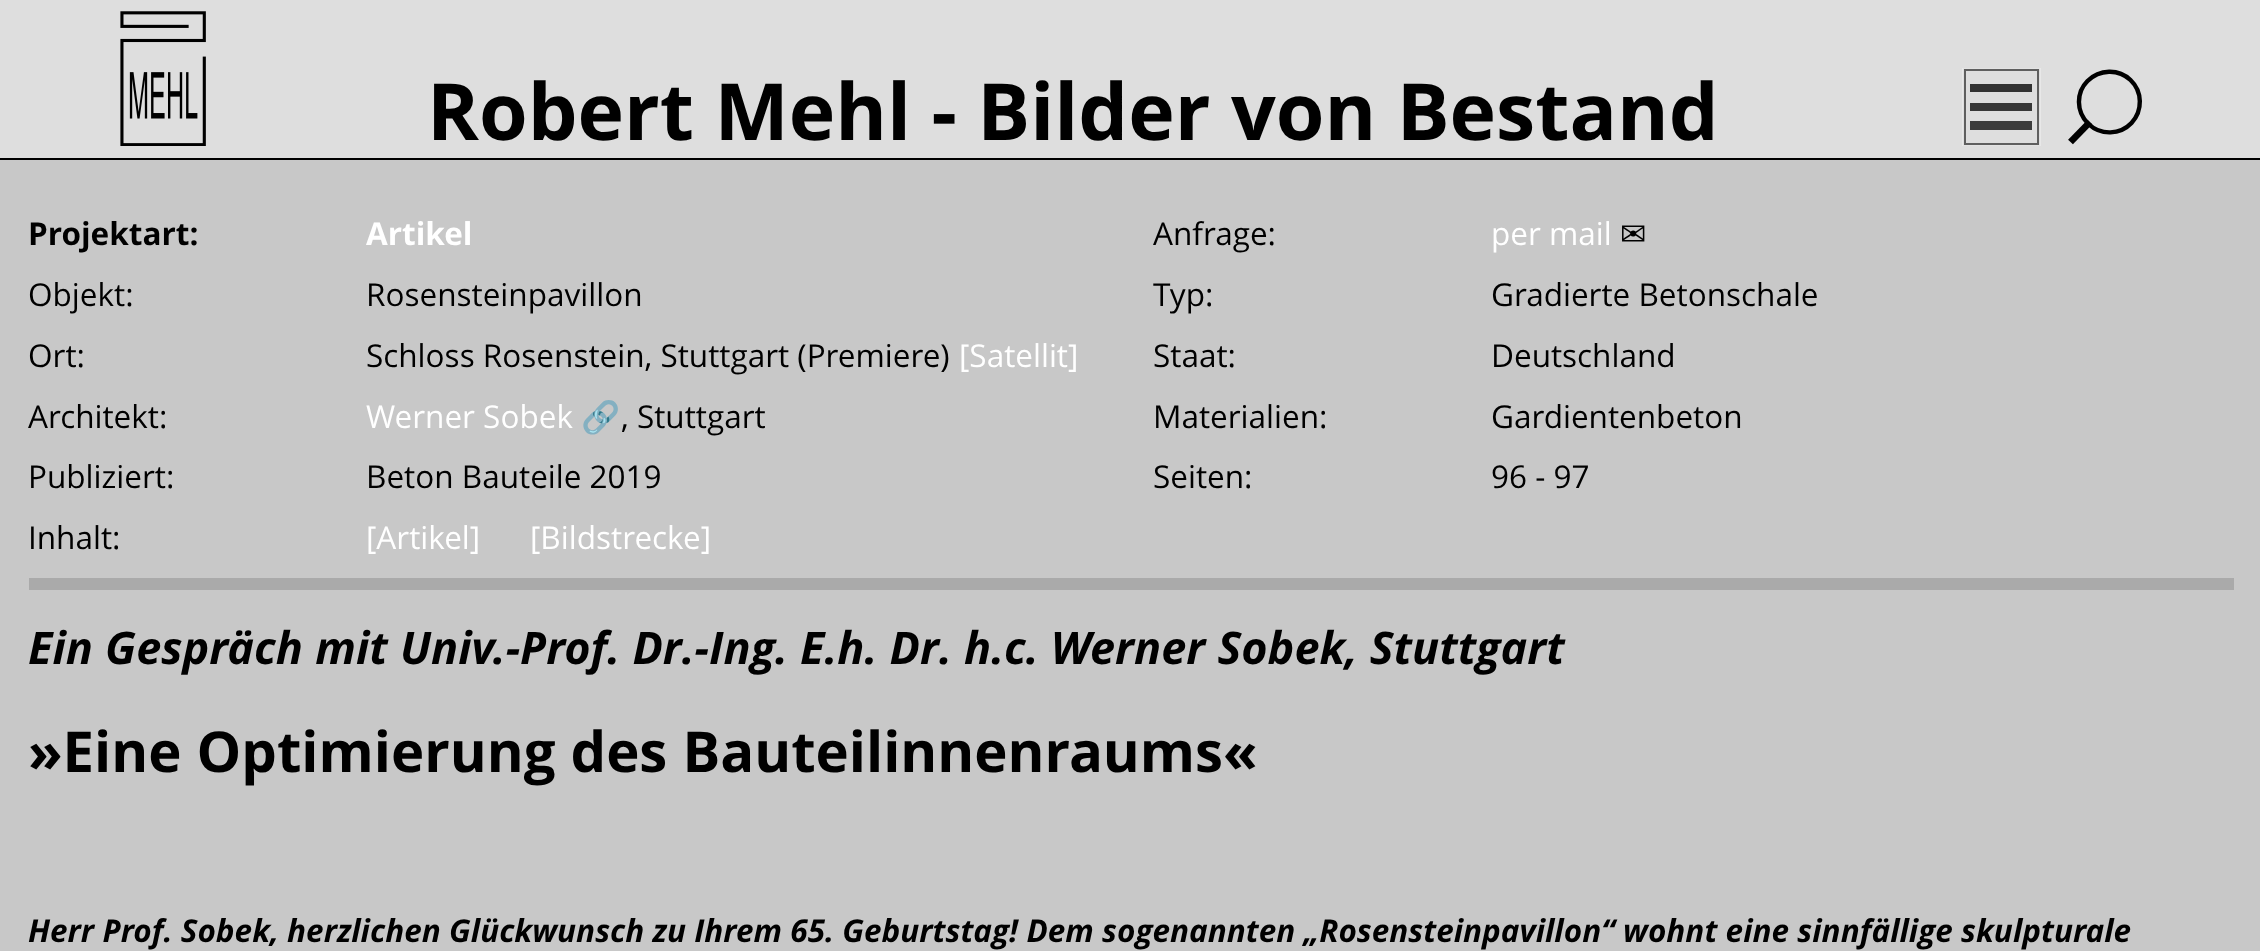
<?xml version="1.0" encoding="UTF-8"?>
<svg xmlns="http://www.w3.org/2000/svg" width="2260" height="951">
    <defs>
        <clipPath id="clip1"><rect x="1962" y="68" width="79" height="78"/></clipPath>
    </defs>
    <rect width="100%" height="100%" fill="#C8C8C8"/>
    <rect x="0" y="0" width="2260" height="158" fill="#DEDEDE"/>
    <rect x="0" y="158" width="2260" height="2" fill="#000000"/>
    <image x="120" y="11" width="86" height="135" href="img_01.png"/>
    <text x="427" y="140" font-family="Open Sans" font-size="78.75" font-weight="700" fill="#000000">Robert Mehl - Bilder von Bestand</text>
    <g clip-path="url(#clip1)">
        <path d="M 1962.5 68 H 2040.5 V 146 H 1962.5 Z" fill="none" stroke="#EEEEEE" stroke-width="0.6"/>
    </g>
    <rect x="1970" y="84" width="62" height="8" fill="#323232"/>
    <rect x="1970" y="103" width="62" height="8" fill="#373737"/>
    <rect x="1970" y="121" width="62" height="9" fill="#3C3C3C"/>
    <rect x="1965" y="70" width="73" height="74" fill="none" stroke="#5F5F5F" stroke-width="2"/>
    <path d="M 2070.5 142 L 2090 122" fill="none" stroke="#000000" stroke-width="6.8"/>
    <path d="M 2088 123.5 C 2076 111.5 2076 92.5 2087.5 81 C 2099.5 69 2118.5 68.5 2130.5 80 C 2142.5 91.5 2143 110.5 2131.5 123 C 2120 135 2101 135.5 2089 124.5" fill="none" stroke="#000000" stroke-width="4.4"/>
    <text x="28" y="245" font-family="Open Sans" font-size="31.5" font-weight="700" fill="#000000">Projektart:</text>
    <text x="366" y="245" font-family="Open Sans" font-size="31.5" font-weight="700" fill="#FFFFFF">Artikel</text>
    <text x="1153" y="245" font-family="Open Sans" font-size="31.5" fill="#000000">Anfrage:</text>
    <text x="1491" y="245" font-family="Open Sans" font-size="31.5" fill="#FFFFFF">per mail</text>
    <text x="1620" y="245" font-family="DejaVu Sans" font-size="31.5" fill="#000000">✉</text>
    <text x="28" y="306" font-family="Open Sans" font-size="31.5" fill="#000000">Objekt:</text>
    <text x="366" y="306" font-family="Open Sans" font-size="31.5" fill="#000000">Rosensteinpavillon</text>
    <text x="1153" y="306" font-family="Open Sans" font-size="31.5" fill="#000000">Typ:</text>
    <text x="1491" y="306" font-family="Open Sans" font-size="31.5" fill="#000000">Gradierte Betonschale</text>
    <text x="28" y="367" font-family="Open Sans" font-size="31.5" fill="#000000">Ort:</text>
    <text x="366" y="367" font-family="Open Sans" font-size="31.5" fill="#000000">Schloss Rosenstein, Stuttgart (Premiere)</text>
    <text x="959" y="367" font-family="Open Sans" font-size="31.5" fill="#FFFFFF">[Satellit]</text>
    <text x="1153" y="367" font-family="Open Sans" font-size="31.5" fill="#000000">Staat:</text>
    <text x="1491" y="367" font-family="Open Sans" font-size="31.5" fill="#000000">Deutschland</text>
    <text x="28" y="428" font-family="Open Sans" font-size="31.5" fill="#000000">Architekt:</text>
    <text x="366" y="428" font-family="Open Sans" font-size="31.5" fill="#FFFFFF">Werner Sobek</text>
    <text x="581" y="428" font-family="Noto Color Emoji" font-size="31.5" fill="#000000">🔗</text>
    <text x="621" y="428" font-family="Open Sans" font-size="31.5" fill="#000000">, Stuttgart</text>
    <text x="1153" y="428" font-family="Open Sans" font-size="31.5" fill="#000000">Materialien:</text>
    <text x="1491" y="428" font-family="Open Sans" font-size="31.5" fill="#000000">Gardientenbeton</text>
    <text x="28" y="488" font-family="Open Sans" font-size="31.5" fill="#000000">Publiziert:</text>
    <text x="366" y="488" font-family="Open Sans" font-size="31.5" fill="#000000">Beton Bauteile 2019</text>
    <text x="1153" y="488" font-family="Open Sans" font-size="31.5" fill="#000000">Seiten:</text>
    <text x="1491" y="488" font-family="Open Sans" font-size="31.5" fill="#000000">96 - 97</text>
    <text x="28" y="549" font-family="Open Sans" font-size="31.5" fill="#000000">Inhalt:</text>
    <text x="366" y="549" font-family="Open Sans" font-size="31.5" fill="#FFFFFF">[Artikel]</text>
    <text x="530" y="549" font-family="Open Sans" font-size="31.5" fill="#FFFFFF">[Bildstrecke]</text>
    <rect x="29" y="578" width="2205" height="12" fill="#AAAAAA"/>
    <text x="28" y="664" word-spacing="0.5" font-family="Open Sans" font-size="45" font-weight="700" font-style="italic" fill="#000000">Ein Gespräch mit Univ.-Prof. Dr.-Ing. E.h. Dr. h.c. Werner Sobek, Stuttgart</text>
    <text x="28" y="772" word-spacing="0.5" font-family="Open Sans" font-size="56.25" font-weight="700" fill="#000000">»Eine Optimierung des Bauteilinnenraums«</text>
    <text x="28" y="942" word-spacing="0.1" font-family="Open Sans" font-size="31.5" font-weight="700" font-style="italic" fill="#000000">Herr Prof. Sobek, herzlichen Glückwunsch zu Ihrem 65. Geburtstag! Dem sogenannten „Rosensteinpavillon“ wohnt eine sinnfällige skulpturale</text>
</svg>
